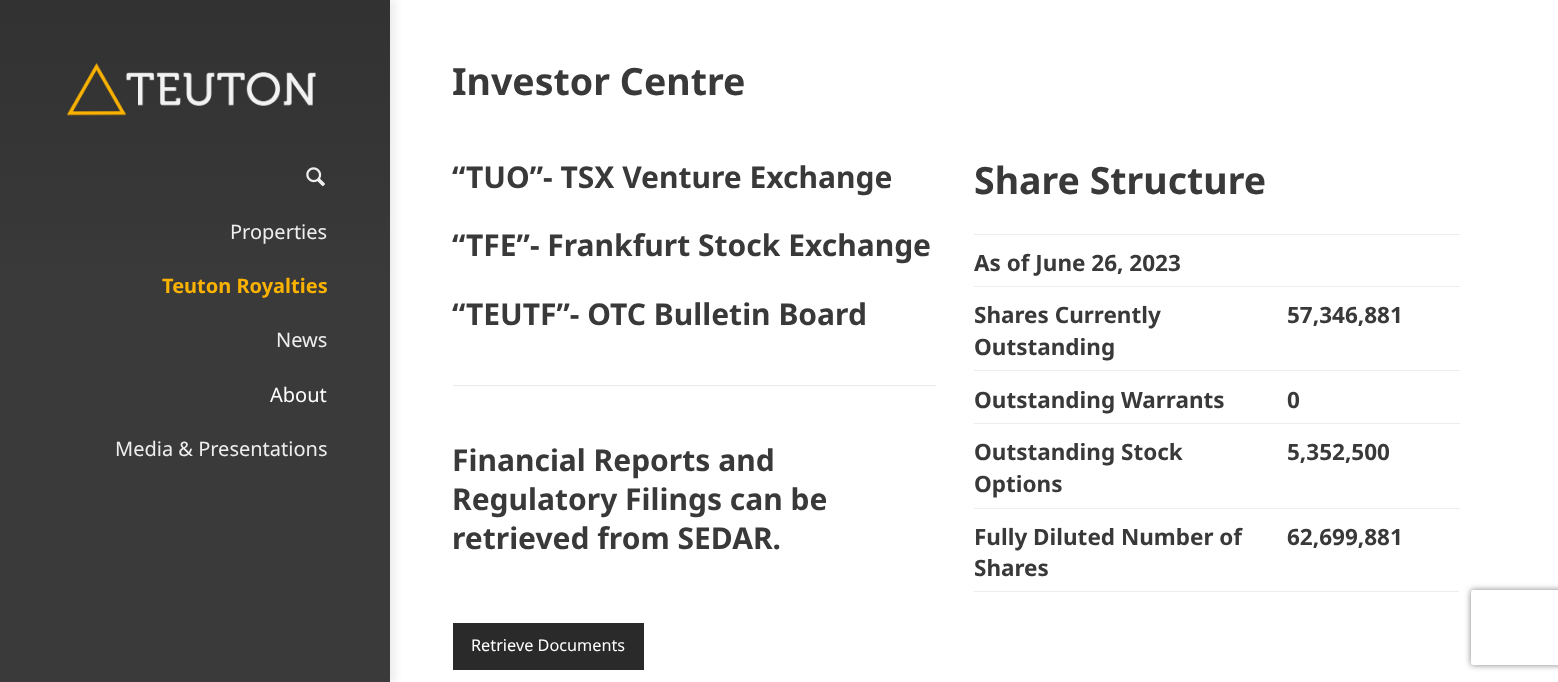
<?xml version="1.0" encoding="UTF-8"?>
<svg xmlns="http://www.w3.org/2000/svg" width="1558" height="682">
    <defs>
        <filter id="blur1" x="-50%" y="-200%" width="200%" height="500%"><feGaussianBlur stdDeviation="4"/></filter>
        <linearGradient id="g1" gradientUnits="userSpaceOnUse" x1="195" y1="0" x2="195" y2="273"><stop offset="0" stop-color="#323232"/><stop offset="0.65" stop-color="#363636"/><stop offset="1" stop-color="#3A3A3A"/></linearGradient>
        <clipPath id="clip1"><path d="M 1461 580 H 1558 V 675 H 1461 Z M 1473.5 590 H 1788.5 C 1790 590 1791 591 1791 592.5 V 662.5 C 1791 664 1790 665 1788.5 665 H 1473.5 C 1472 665 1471 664 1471 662.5 V 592.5 C 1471 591 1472 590 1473.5 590 Z" clip-rule="evenodd"/></clipPath>
        <filter id="blur2" x="-50%" y="-200%" width="200%" height="500%"><feGaussianBlur stdDeviation="3"/></filter>
    </defs>
    <rect width="100%" height="100%" fill="#FFFFFF"/>
    <rect x="5" y="0" width="390" height="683" fill="#000000" fill-opacity="0.08" filter="url(#blur1)"/>
    <rect x="0" y="273" width="390" height="409" fill="#3A3A3A"/>
    <rect x="0" y="0" width="390" height="273" fill="url(#g1)"/>
    <image x="67" y="62" width="249" height="54" href="img_01.png"/>
    <image x="306" y="167" width="19" height="20" href="img_02.png"/>
    <text x="230" y="239" font-family="Noto Sans" font-size="20" fill="#EEEEEE">Properties</text>
    <text x="162" y="293" font-family="Noto Sans" font-size="20" font-weight="700" fill="#FAB201">Teuton Royalties</text>
    <text x="276" y="347" font-family="Noto Sans" font-size="20" fill="#EEEEEE">News</text>
    <text x="270" y="402" font-family="Noto Sans" font-size="20" fill="#FFFFFF">About</text>
    <text x="115" y="456" font-family="Noto Sans" font-size="20" fill="#EEEEEE">Media &amp; Presentations</text>
    <text x="452" y="95" font-family="Noto Sans" font-size="37.5" font-weight="700" fill="#393939">Investor Centre</text>
    <text x="452" y="188" font-family="Noto Sans" font-size="30" font-weight="700" fill="#393939">“TUO”- TSX Venture Exchange</text>
    <text x="452" y="256" font-family="Noto Sans" font-size="30" font-weight="700" fill="#393939">“TFE”- Frankfurt Stock Exchange</text>
    <text x="452" y="325" font-family="Noto Sans" font-size="30" font-weight="700" fill="#393939">“TEUTF”- OTC Bulletin Board</text>
    <rect x="453" y="385" width="483" height="1" fill="#EBEBEB"/>
    <text font-family="Noto Sans" font-size="30" font-weight="700" fill="#393939">
        <tspan x="452" y="471">Financial Reports and</tspan>
        <tspan x="452" y="510">Regulatory Filings can be</tspan>
        <tspan x="452" y="549">retrieved from SEDAR.</tspan>
    </text>
    <rect x="453" y="623" width="191" height="47" fill="#2A2A2A"/>
    <text x="471" y="651" font-family="Noto Sans" font-size="16.25" fill="#FFFFFF">Retrieve Documents</text>
    <text x="974" y="194" font-family="Noto Sans" font-size="37.5" font-weight="700" fill="#393939">Share Structure</text>
    <rect x="974" y="591" width="485" height="1" fill="#EDEDED"/>
    <rect x="974" y="234" width="486" height="1" fill="#EDEDED"/>
    <text x="974" y="271" font-family="Noto Sans" font-size="22.5" font-weight="700" fill="#393939">As of June 26, 2023</text>
    <text font-family="Noto Sans" font-size="22.5" font-weight="700" fill="#393939">
        <tspan x="974" y="323">Shares Currently</tspan>
        <tspan x="974" y="355">Outstanding</tspan>
    </text>
    <rect x="974" y="286" width="486" height="1" fill="#EDEDED"/>
    <text x="1287" y="323" font-family="Noto Sans" font-size="22.5" font-weight="700" fill="#393939">57,346,881</text>
    <text x="974" y="408" font-family="Noto Sans" font-size="22.5" font-weight="700" fill="#393939">Outstanding Warrants</text>
    <rect x="974" y="370" width="486" height="1" fill="#EDEDED"/>
    <text x="1287" y="408" font-family="Noto Sans" font-size="22.5" font-weight="700" fill="#393939">0</text>
    <text font-family="Noto Sans" font-size="22.5" font-weight="700" fill="#393939">
        <tspan x="974" y="460">Outstanding Stock</tspan>
        <tspan x="974" y="492">Options</tspan>
    </text>
    <rect x="974" y="423" width="486" height="1" fill="#EDEDED"/>
    <text x="1287" y="460" font-family="Noto Sans" font-size="22.5" font-weight="700" fill="#393939">5,352,500</text>
    <text font-family="Noto Sans" font-size="22.5" font-weight="700" fill="#393939">
        <tspan x="974" y="545">Fully Diluted Number of</tspan>
        <tspan x="974" y="576">Shares</tspan>
    </text>
    <rect x="974" y="508" width="486" height="1" fill="#EDEDED"/>
    <text x="1287" y="545" font-family="Noto Sans" font-size="22.5" font-weight="700" fill="#393939">62,699,881</text>
    <g clip-path="url(#clip1)">
        <rect x="1471" y="590" width="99" height="75" rx="2.5" fill="#808080" filter="url(#blur2)"/>
    </g>
</svg>
